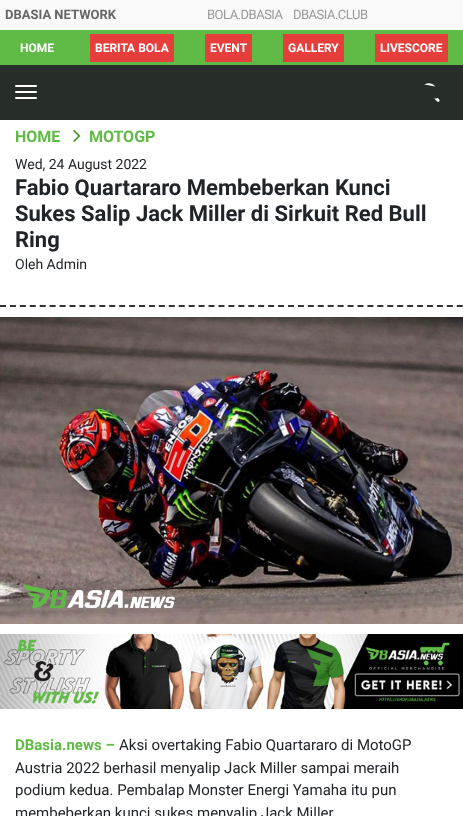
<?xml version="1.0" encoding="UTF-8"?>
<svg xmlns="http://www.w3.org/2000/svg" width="463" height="816">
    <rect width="100%" height="100%" fill="#FFFFFF"/>
    <rect x="0" y="0" width="463" height="30" fill="#F9F9F9"/>
    <text x="5" y="19" font-family="Roboto" font-size="13" font-weight="700" fill="#666666">DBASIA NETWORK</text>
    <text x="207" y="19" font-family="Roboto" font-size="13" letter-spacing="-0.5" fill="#999999">BOLA.DBASIA</text>
    <text x="293" y="19" font-family="Roboto" font-size="13" letter-spacing="-0.5" fill="#999999">DBASIA.CLUB</text>
    <rect x="0" y="30" width="463" height="35" fill="#60BB46"/>
    <text x="20" y="52" font-family="Roboto" font-size="12" font-weight="700" fill="#FFFFFF">HOME</text>
    <rect x="90" y="34" width="84" height="28" fill="#E53E3B"/>
    <text x="95" y="52" font-family="Roboto" font-size="12" font-weight="700" fill="#FFFFFF">BERITA BOLA</text>
    <rect x="205" y="34" width="47" height="28" fill="#E53E3B"/>
    <text x="210" y="52" font-family="Roboto" font-size="12" font-weight="700" fill="#FFFFFF">EVENT</text>
    <rect x="283" y="34" width="61" height="28" fill="#E53E3B"/>
    <text x="288" y="52" font-family="Roboto" font-size="12" font-weight="700" fill="#FFFFFF">GALLERY</text>
    <rect x="375" y="34" width="73" height="28" fill="#E53E3B"/>
    <text x="380" y="52" font-family="Roboto" font-size="12" font-weight="700" fill="#FFFFFF">LIVESCORE</text>
    <rect x="0" y="65" width="463" height="55" fill="#272E29"/>
    <image x="424" y="83" width="16" height="19" href="img_01.png"/>
    <ellipse cx="231.5" cy="92.5" rx="216.5" ry="17.5" fill="#272E29"/>
    <rect x="15" y="85" width="22" height="2" rx="1" fill="#FFFFFF"/>
    <rect x="15" y="91" width="22" height="2" rx="1" fill="#FFFFFF"/>
    <rect x="15" y="97" width="22" height="2" rx="1" fill="#FFFFFF"/>
    <text x="15" y="142" font-family="Roboto" font-size="16" font-weight="700" fill="#60BB46">HOME</text>
    <image x="73" y="129" width="8" height="13" href="img_02.png"/>
    <text x="89" y="142" font-family="Roboto" font-size="16" font-weight="700" fill="#60BB46">MOTOGP</text>
    <path d="M 0 306 H 463" fill="none" stroke="#333333" stroke-width="2" stroke-dasharray="6 3.93"/>
    <text x="15" y="169" font-family="Roboto" font-size="14" fill="#212529">Wed, 24 August 2022</text>
    <text font-family="Roboto" font-size="22" font-weight="700" fill="#212529">
        <tspan x="15" y="195">Fabio Quartararo Membeberkan Kunci</tspan>
        <tspan x="15" y="221">Sukes Salip Jack Miller di Sirkuit Red Bull</tspan>
        <tspan x="15" y="247">Ring</tspan>
    </text>
    <text x="15" y="269" font-family="Roboto" font-size="14" fill="#212529">Oleh Admin</text>
    <image x="0" y="317" width="463" height="307" href="img_03.png"/>
    <image x="0" y="634" width="463" height="75" href="img_04.png"/>
    <text x="15" y="750" font-family="Roboto" font-size="15" font-weight="700" fill="#60BB46">DBasia.news –</text>
    <text x="119" y="750" font-family="Roboto" font-size="15" fill="#212529">Aksi overtaking Fabio Quartararo di MotoGP</text>
    <text font-family="Roboto" font-size="15" fill="#212529">
        <tspan x="15" y="773">Austria 2022 berhasil menyalip Jack Miller sampai meraih</tspan>
        <tspan x="15" y="795">podium kedua. Pembalap Monster Energi Yamaha itu pun</tspan>
        <tspan x="15" y="818">membeberkan kunci sukes menyalip Jack Miller.</tspan>
    </text>
</svg>
